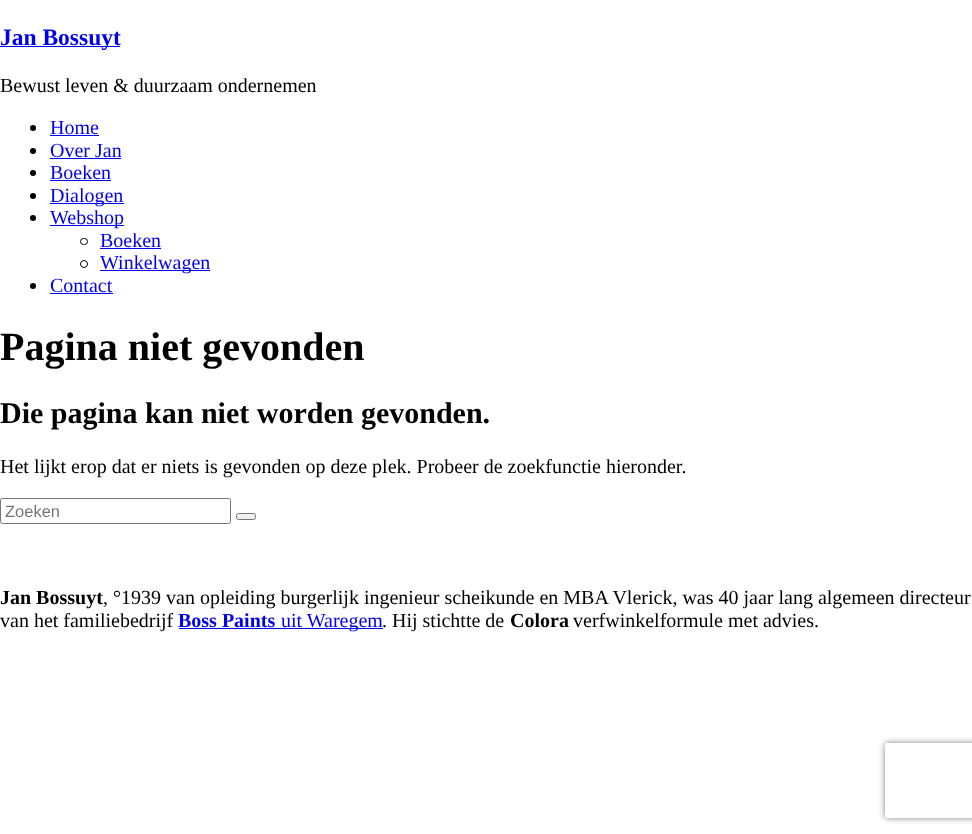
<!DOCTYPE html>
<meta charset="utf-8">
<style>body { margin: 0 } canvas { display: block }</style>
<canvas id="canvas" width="972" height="834"></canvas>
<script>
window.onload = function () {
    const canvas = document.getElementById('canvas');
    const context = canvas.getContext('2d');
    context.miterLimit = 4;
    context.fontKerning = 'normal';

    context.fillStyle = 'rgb(255, 255, 255)';
    context.fillRect(0, 0, 972, 834);
    context.fillStyle = 'rgb(0, 0, 238)';
    context.fillRect(0, 46, 120, 1);
    context.fillStyle = 'rgb(0, 0, 0)';
    context.beginPath();
    context.arc(33, 128, 3, 0, 2 * Math.PI);
    context.fill();
    context.fillStyle = 'rgb(0, 0, 238)';
    context.fillRect(50, 135, 49, 1);
    context.fillStyle = 'rgb(0, 0, 0)';
    context.beginPath();
    context.arc(33, 151, 3, 0, 2 * Math.PI);
    context.fill();
    context.fillStyle = 'rgb(0, 0, 238)';
    context.fillRect(50, 158, 71, 1);
    context.fillStyle = 'rgb(0, 0, 0)';
    context.beginPath();
    context.arc(33, 173, 3, 0, 2 * Math.PI);
    context.fill();
    context.fillStyle = 'rgb(0, 0, 238)';
    context.fillRect(50, 180, 61, 1);
    context.fillStyle = 'rgb(0, 0, 0)';
    context.beginPath();
    context.arc(33, 196, 3, 0, 2 * Math.PI);
    context.fill();
    context.fillStyle = 'rgb(0, 0, 238)';
    context.fillRect(50, 203, 74, 1);
    context.fillStyle = 'rgb(0, 0, 0)';
    context.beginPath();
    context.arc(33, 218, 3, 0, 2 * Math.PI);
    context.fill();
    context.fillStyle = 'rgb(0, 0, 238)';
    context.fillRect(50, 225, 74, 1);
    context.beginPath();
    context.roundRect(80.5, 238.5, 7, 6, 3);
    context.strokeStyle = 'rgb(0, 0, 0)';
    context.stroke();
    context.fillRect(100, 248, 61, 1);
    context.beginPath();
    context.arc(84, 264, 3.5, 0, 2 * Math.PI);
    context.stroke();
    context.fillRect(100, 270, 110, 1);
    context.fillStyle = 'rgb(0, 0, 0)';
    context.beginPath();
    context.arc(33, 286, 3, 0, 2 * Math.PI);
    context.fill();
    context.fillStyle = 'rgb(0, 0, 238)';
    context.fillRect(50, 293, 63, 1);
    context.beginPath();
    context.roundRect(0.5, 498.5, 230, 25, 2);
    context.strokeStyle = 'rgb(118, 118, 118)';
    context.stroke();
    context.fillStyle = 'rgb(239, 239, 239)';
    context.beginPath();
    context.roundRect(236.5, 513.5, 19, 6, 2);
    context.fill();
    context.stroke();
    context.fillStyle = 'rgb(0, 0, 238)';
    context.fillRect(179, 628, 204, 1);
    context.save();
    context.beginPath();
    context.moveTo(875, 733);
    context.lineTo(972, 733);
    context.lineTo(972, 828);
    context.lineTo(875, 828);
    context.closePath();
    context.moveTo(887.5, 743);
    context.lineTo(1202.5, 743);
    context.bezierCurveTo(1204, 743, 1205, 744, 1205, 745.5);
    context.lineTo(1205, 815.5);
    context.bezierCurveTo(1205, 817, 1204, 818, 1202.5, 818);
    context.lineTo(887.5, 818);
    context.bezierCurveTo(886, 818, 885, 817, 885, 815.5);
    context.lineTo(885, 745.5);
    context.bezierCurveTo(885, 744, 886, 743, 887.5, 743);
    context.closePath();
    context.clip('evenodd');
    context.fillStyle = 'rgb(128, 128, 128)';
    context.filter = 'blur(3px)';
    context.beginPath();
    context.roundRect(885, 743, 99, 75, 2.5);
    context.fill();
    context.filter = 'none';
    context.restore();
    context.font = 'bold 23.5px Liberation Serif';
    context.fillText('Jan Bossuyt', 0, 45);
    context.font = '20px Liberation Serif';
    context.fillStyle = 'rgb(0, 0, 0)';
    context.fillText('Bewust leven & duurzaam ondernemen', 0, 92);
    context.fillStyle = 'rgb(0, 0, 238)';
    context.fillText('Home', 50, 134);
    context.fillText('Over Jan', 50, 157);
    context.fillText('Boeken', 50, 179);
    context.fillText('Dialogen', 50, 202);
    context.fillText('Webshop', 50, 224);
    context.fillText('Boeken', 100, 247);
    context.fillText('Winkelwagen', 100, 269);
    context.fillText('Contact', 50, 292);
    context.font = 'bold 40px Liberation Serif';
    context.fillStyle = 'rgb(0, 0, 0)';
    context.fillText('Pagina niet gevonden', 0, 360);
    context.font = 'bold 30px Liberation Serif';
    context.fillText('Die pagina kan niet worden gevonden.', 0, 423);
    context.font = '20px Liberation Serif';
    context.fillText('Het lijkt erop dat er niets is gevonden op deze plek. Probeer de zoekfunctie hieronder.', 0, 473);
    context.font = '16.5px Liberation Sans';
    context.fillStyle = 'rgb(117, 117, 117)';
    context.fillText('Zoeken', 5, 517);
    context.font = 'bold 20px Liberation Serif';
    context.fillStyle = 'rgb(0, 0, 0)';
    context.fillText('Jan Bossuyt', 0, 604);
    context.font = '20px Liberation Serif';
    context.fillText(', °1939 van opleiding burgerlijk ingenieur scheikunde en MBA Vlerick, was 40 jaar lang algemeen directeur', 103, 604);
    context.fillText('van het familiebedrijf', 0, 627);
    context.font = 'bold 20px Liberation Serif';
    context.fillStyle = 'rgb(0, 0, 238)';
    context.fillText('Boss Paints', 178, 627);
    context.font = '20px Liberation Serif';
    context.fillText('uit Waregem', 281, 627);
    context.fillStyle = 'rgb(0, 0, 0)';
    context.fillText('. Hij stichtte de', 382, 627);
    context.font = 'bold 20px Liberation Serif';
    context.fillText('Colora', 510, 627);
    context.font = '20px Liberation Serif';
    context.fillText('verfwinkelformule met advies.', 573, 627);
};
</script>
